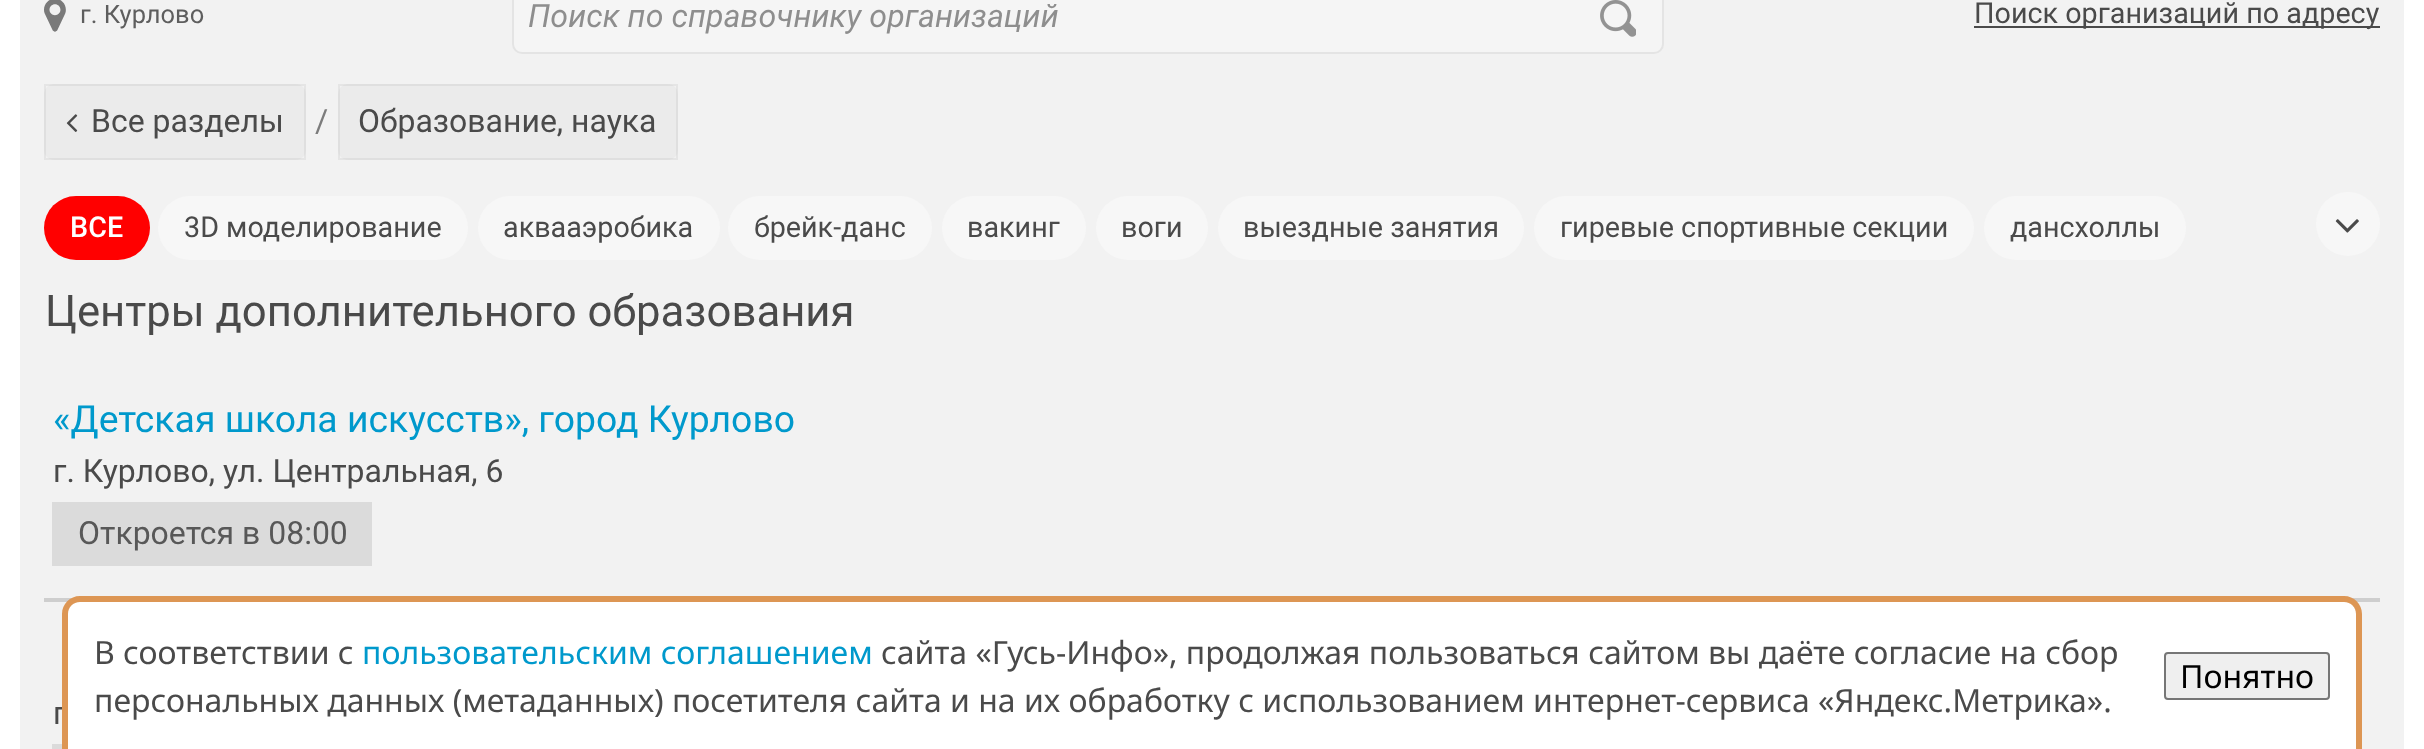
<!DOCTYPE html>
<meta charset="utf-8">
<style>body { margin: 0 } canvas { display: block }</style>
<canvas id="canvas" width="2424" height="749"></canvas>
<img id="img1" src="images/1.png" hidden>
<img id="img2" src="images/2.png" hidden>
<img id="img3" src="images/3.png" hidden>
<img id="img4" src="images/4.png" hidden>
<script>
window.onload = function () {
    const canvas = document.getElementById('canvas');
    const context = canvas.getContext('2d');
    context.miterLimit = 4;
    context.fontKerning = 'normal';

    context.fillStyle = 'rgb(255, 255, 255)';
    context.fillRect(0, 0, 2424, 749);
    context.fillStyle = 'rgb(242, 242, 242)';
    context.fillRect(20, 0, 2384, 749);
    context.drawImage(document.getElementById('img1'), 44, 0, 22, 32);
    context.fillStyle = 'rgb(245, 245, 245)';
    context.beginPath();
    context.roundRect(513, -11, 1150, 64, 9);
    context.fill();
    context.strokeStyle = 'rgb(228, 228, 228)';
    context.lineWidth = 2;
    context.stroke();
    context.drawImage(document.getElementById('img2'), 1600, 0, 36, 37);
    context.fillStyle = 'rgb(74, 74, 74)';
    context.fillRect(1974, 26, 406, 2);
    context.fillStyle = 'rgb(235, 235, 235)';
    context.beginPath();
    context.roundRect(44, 84, 262, 76, 10);
    context.fill();
    context.strokeStyle = 'rgba(0, 0, 0, 0.05)';
    context.strokeRect(45, 85, 260, 74);
    context.drawImage(document.getElementById('img3'), 66, 114, 12, 18);
    context.beginPath();
    context.roundRect(338, 84, 340, 76, 10);
    context.fill();
    context.strokeRect(339, 85, 338, 74);
    context.fillStyle = 'rgb(255, 0, 0)';
    context.beginPath();
    context.roundRect(44, 196, 106, 64, 32);
    context.fill();
    context.fillStyle = 'rgb(247, 247, 247)';
    context.beginPath();
    context.roundRect(158, 196, 310, 64, 32);
    context.fill();
    context.beginPath();
    context.roundRect(478, 196, 242, 64, 32);
    context.fill();
    context.beginPath();
    context.roundRect(728, 196, 204, 64, 32);
    context.fill();
    context.beginPath();
    context.roundRect(942, 196, 144, 64, 32);
    context.fill();
    context.beginPath();
    context.roundRect(1096, 196, 112, 64, 32);
    context.fill();
    context.beginPath();
    context.roundRect(1218, 196, 306, 64, 32);
    context.fill();
    context.beginPath();
    context.roundRect(1534, 196, 440, 64, 32);
    context.fill();
    context.beginPath();
    context.roundRect(1984, 196, 202, 64, 32);
    context.fill();
    context.beginPath();
    context.arc(2348, 224, 32, 0, 2 * Math.PI);
    context.fill();
    context.drawImage(document.getElementById('img4'), 2335, 219, 24, 14);
    context.fillStyle = 'rgb(219, 219, 219)';
    context.fillRect(52, 502, 320, 64);
    context.fillStyle = 'rgb(206, 206, 206)';
    context.fillRect(44, 598, 2336, 4);
    context.fillStyle = 'rgb(219, 219, 219)';
    context.fillRect(52, 744, 10, 5);
    context.fillStyle = 'rgb(255, 255, 255)';
    context.beginPath();
    context.moveTo(80, 602);
    context.lineTo(2344, 602);
    context.bezierCurveTo(2350.5, 602, 2356, 607.5, 2356, 614);
    context.lineTo(2356, 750);
    context.lineTo(68, 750);
    context.lineTo(68, 614);
    context.bezierCurveTo(68, 607.5, 73.5, 602, 80, 602);
    context.closePath();
    context.fill();
    context.font = '25.5px Roboto';
    context.fillStyle = 'rgb(94, 94, 94)';
    context.fillText('г. Курлово', 80, 23);
    context.font = 'italic 32px Roboto';
    context.fillStyle = 'rgb(142, 142, 142)';
    context.fillText('Поиск по справочнику организаций', 528, 27);
    context.font = '28.75px Roboto';
    context.fillStyle = 'rgb(74, 74, 74)';
    context.fillText('Поиск организаций по адресу', 1974, 23);
    context.font = '32px Roboto';
    context.fillText('Все разделы', 91, 132);
    context.fillStyle = 'rgb(124, 124, 124)';
    context.fillText('/', 315, 132);
    context.fillStyle = 'rgb(74, 74, 74)';
    context.fillText('Образование, наука', 358, 132);
    context.font = '500 28.75px Roboto';
    context.fillStyle = 'rgb(255, 255, 255)';
    context.fillText('ВСЕ', 70, 237);
    context.font = '28.75px Roboto';
    context.fillStyle = 'rgb(74, 74, 74)';
    context.fillText('3D моделирование', 184, 237);
    context.fillText('аквааэробика', 503, 237);
    context.fillText('брейк-данс', 754, 237);
    context.fillText('вакинг', 967, 237);
    context.fillText('воги', 1121, 237);
    context.fillText('выездные занятия', 1243, 237);
    context.fillText('гиревые спортивные секции', 1560, 237);
    context.fillText('дансхоллы', 2010, 237);
    context.font = '43.7px Roboto';
    context.fillText('Центры дополнительного образования', 45, 326);
    context.font = '37.4px Roboto';
    context.fillStyle = 'rgb(0, 153, 204)';
    context.fillText('«Детская школа искусств», город Курлово', 53, 432);
    context.font = '32px Roboto';
    context.fillStyle = 'rgb(74, 74, 74)';
    context.fillText('г. Курлово, ул. Центральная, 6', 53, 482);
    context.fillStyle = 'rgb(88, 88, 88)';
    context.fillText('Откроется в 08:00', 78, 544);
    context.fillStyle = 'rgb(74, 74, 74)';
    context.fillText('г', 53, 724);
    context.fillStyle = 'rgb(221, 150, 84)';
    context.beginPath();
    context.moveTo(80, 596);
    context.lineTo(2344, 596);
    context.bezierCurveTo(2354, 596, 2362, 604, 2362, 614);
    context.lineTo(2362, 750);
    context.lineTo(62, 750);
    context.lineTo(62, 614);
    context.bezierCurveTo(62, 604, 70, 596, 80, 596);
    context.closePath();
    context.moveTo(80, 602);
    context.lineTo(2344, 602);
    context.bezierCurveTo(2351, 602, 2356, 607, 2356, 614);
    context.lineTo(2356, 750);
    context.lineTo(68, 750);
    context.lineTo(68, 614);
    context.bezierCurveTo(68, 607, 73, 602, 80, 602);
    context.closePath();
    context.fill('evenodd');
    context.font = '32px Noto Sans';
    context.fillStyle = 'rgb(74, 74, 74)';
    context.fillText('В соответствии с', 94, 664);
    context.fillStyle = 'rgb(0, 153, 204)';
    context.fillText('пользовательским соглашением', 362, 664);
    context.fillStyle = 'rgb(74, 74, 74)';
    context.fillText('сайта «Гусь-Инфо», продолжая пользоваться сайтом вы даёте согласие на сбор', 881, 664);
    context.fillText('персональных данных (метаданных) посетителя сайта и на их обработку с использованием интернет-сервиса «Яндекс.Метрика».', 94, 712);
    context.fillStyle = 'rgb(239, 239, 239)';
    context.beginPath();
    context.roundRect(2165, 653, 164, 46, 3);
    context.fill();
    context.strokeStyle = 'rgb(118, 118, 118)';
    context.stroke();
    context.fillStyle = 'rgb(0, 0, 0)';
    context.fillText('Понятно', 2180, 688);
};
</script>
